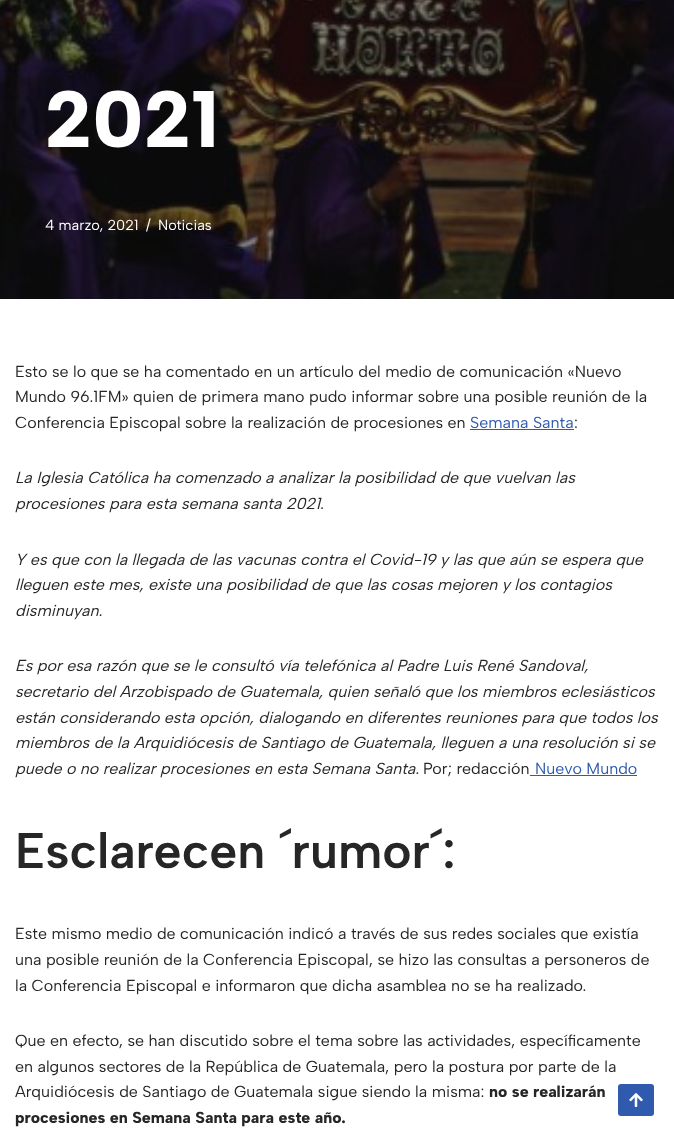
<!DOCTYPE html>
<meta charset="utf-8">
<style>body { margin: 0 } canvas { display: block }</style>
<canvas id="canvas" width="674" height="1146"></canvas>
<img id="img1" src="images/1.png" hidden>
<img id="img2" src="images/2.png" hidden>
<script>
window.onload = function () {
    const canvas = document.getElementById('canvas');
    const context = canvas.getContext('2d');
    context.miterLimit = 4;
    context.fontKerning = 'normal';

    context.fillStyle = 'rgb(255, 255, 255)';
    context.fillRect(0, 0, 674, 1146);
    context.drawImage(document.getElementById('img1'), 0, 0, 674, 299);
    context.fillStyle = 'rgb(47, 90, 174)';
    context.fillRect(470, 429, 104, 1);
    context.fillRect(530, 775, 107, 1);
    context.beginPath();
    context.roundRect(618, 1084, 36, 32, 3);
    context.fill();
    context.drawImage(document.getElementById('img2'), 629, 1093, 14, 14);
    context.font = '800 80px Albert Sans';
    context.fillStyle = 'rgb(255, 255, 255)';
    context.fillText('2021', 45, 147);
    context.font = '14.5px Albert Sans';
    context.fillText('4 marzo, 2021', 45, 230);
    context.fillText('/', 146, 230);
    context.fillText('Noticias', 158, 230);
    context.font = '16px Albert Sans';
    context.fillStyle = 'rgb(39, 38, 38)';
    context.fillText('Esto se lo que se ha comentado en un artículo del medio de comunicación «Nuevo', 15, 377);
    context.fillText('Mundo 96.1FM» quien de primera mano pudo informar sobre una posible reunión de la', 15, 402);
    context.fillText('Conferencia Episcopal sobre la realización de procesiones en', 15, 428);
    context.fillStyle = 'rgb(47, 90, 174)';
    context.fillText('Semana Santa', 470, 428);
    context.fillStyle = 'rgb(39, 38, 38)';
    context.fillText(':', 574, 428);
    context.font = 'italic 16px Albert Sans';
    context.fillText('La Iglesia Católica ha comenzado a analizar la posibilidad de que vuelvan las', 15, 483);
    context.fillText('procesiones para esta semana santa 2021.', 15, 509);
    context.fillText('Y es que con la llegada de las vacunas contra el Covid-19 y las que aún se espera que', 15, 565);
    context.fillText('lleguen este mes, existe una posibilidad de que las cosas mejoren y los contagios', 15, 590);
    context.fillText('disminuyan.', 15, 616);
    context.fillText('Es por esa razón que se le consultó vía telefónica al Padre Luis René Sandoval,', 15, 671);
    context.fillText('secretario del Arzobispado de Guatemala, quien señaló que los miembros eclesiásticos', 15, 697);
    context.fillText('están considerando esta opción, dialogando en diferentes reuniones para que todos los', 15, 723);
    context.fillText('miembros de la Arquidiócesis de Santiago de Guatemala, lleguen a una resolución si se', 15, 748);
    context.fillText('puede o no realizar procesiones en esta Semana Santa.', 15, 774);
    context.font = '16px Albert Sans';
    context.fillText('Por; redacción', 423, 774);
    context.fillStyle = 'rgb(47, 90, 174)';
    context.fillText('Nuevo Mundo', 535, 774);
    context.font = '600 50px Albert Sans';
    context.fillStyle = 'rgb(39, 38, 38)';
    context.fillText('Esclarecen ´rumor´:', 15, 868);
    context.font = '16px Albert Sans';
    context.fillText('Este mismo medio de comunicación indicó a través de sus redes sociales que existía', 15, 939);
    context.fillText('una posible reunión de la Conferencia Episcopal, se hizo las consultas a personeros de', 15, 965);
    context.fillText('la Conferencia Episcopal e informaron que dicha asamblea no se ha realizado.', 15, 991);
    context.fillText('Que en efecto, se han discutido sobre el tema sobre las actividades, específicamente', 15, 1046);
    context.fillText('en algunos sectores de la República de Guatemala, pero la postura por parte de la', 15, 1072);
    context.fillText('Arquidiócesis de Santiago de Guatemala sigue siendo la misma:', 15, 1097);
    context.font = '800 16px Albert Sans';
    context.fillText('no se realizarán', 489, 1097);
    context.fillText('procesiones en Semana Santa para este año.', 15, 1123);
};
</script>
